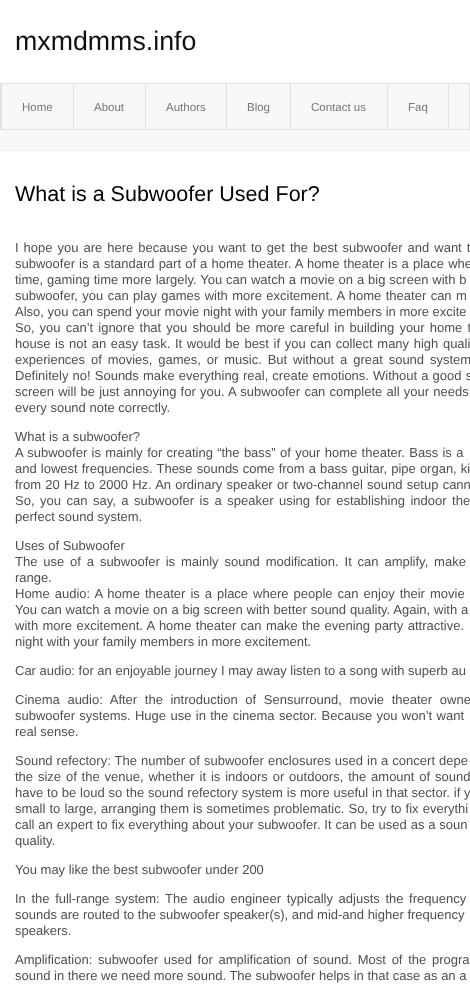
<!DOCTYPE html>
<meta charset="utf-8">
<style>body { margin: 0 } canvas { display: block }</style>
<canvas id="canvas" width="470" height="999"></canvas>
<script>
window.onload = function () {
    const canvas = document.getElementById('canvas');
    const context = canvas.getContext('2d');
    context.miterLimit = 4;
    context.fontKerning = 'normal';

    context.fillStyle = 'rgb(248, 248, 248)';
    context.fillRect(0, 0, 470, 999);
    context.fillStyle = 'rgb(255, 255, 255)';
    context.fillRect(0, 0, 470, 83);
    context.strokeStyle = 'rgb(225, 225, 225)';
    context.strokeRect(0.5, 83.5, 469, 46);
    context.fillStyle = 'rgb(225, 225, 225)';
    context.fillRect(1, 84, 1, 46);
    context.fillRect(73, 84, 1, 46);
    context.fillRect(145, 84, 1, 46);
    context.fillRect(226, 84, 1, 46);
    context.fillRect(290, 84, 1, 46);
    context.fillRect(387, 84, 1, 46);
    context.fillRect(448, 84, 1, 46);
    context.fillStyle = 'rgb(255, 255, 255)';
    context.fillRect(0, 151, 470, 848);
    context.fillStyle = 'rgb(241, 241, 241)';
    context.fillRect(0, 150, 470, 1);
    context.font = '26.75px Liberation Sans';
    context.fillStyle = 'rgb(17, 17, 17)';
    context.fillText('mxmdmms.info', 15, 50);
    context.font = '11.5px Liberation Sans';
    context.fillStyle = 'rgb(119, 119, 119)';
    context.fillText('Home', 22, 111);
    context.fillText('About', 94, 111);
    context.fillText('Authors', 166, 111);
    context.fillText('Blog', 247, 111);
    context.fillText('Contact us', 311, 111);
    context.fillText('Faq', 408, 111);
    context.font = '21.5px Liberation Sans';
    context.fillStyle = 'rgb(0, 0, 0)';
    context.fillText('What is a Subwoofer Used For?', 15, 201);
    context.wordSpacing = '1.4px';
    context.font = '13px Liberation Sans';
    context.fillStyle = 'rgb(79, 79, 79)';
    context.fillText('I hope you are here because you want to get the best subwoofer and want t', 15, 252);
    context.wordSpacing = '0.5px';
    context.fillText('subwoofer is a standard part of a home theater. A home theater is a place whe', 15, 268);
    context.wordSpacing = '0.3px';
    context.fillText('time, gaming time more largely. You can watch a movie on a big screen with b', 15, 284);
    context.wordSpacing = '0.8px';
    context.fillText('subwoofer, you can play games with more excitement. A home theater can m', 15, 300);
    context.wordSpacing = '0px';
    context.fillText('Also, you can spend your movie night with your family members in more excite', 15, 316);
    context.wordSpacing = '1.5px';
    context.fillText('So, you can’t ignore that you should be more careful in building your home t', 15, 332);
    context.wordSpacing = '1px';
    context.fillText('house is not an easy task. It would be best if you can collect many high quali', 15, 348);
    context.wordSpacing = '2.25px';
    context.fillText('experiences of movies, games, or music. But without a great sound system', 15, 364);
    context.wordSpacing = '0.5px';
    context.fillText('Definitely no! Sounds make everything real, create emotions. Without a good s', 15, 380);
    context.wordSpacing = '0.6px';
    context.fillText('screen will be just annoying for you. A subwoofer can complete all your needs', 15, 396);
    context.wordSpacing = '0px';
    context.fillText('every sound note correctly.', 15, 412);
    context.fillText('What is a subwoofer?', 15, 441);
    context.wordSpacing = '0.7px';
    context.fillText('A subwoofer is mainly for creating “the bass” of your home theater. Bass is a', 15, 457);
    context.wordSpacing = '0.5px';
    context.fillText('and lowest frequencies. These sounds come from a bass guitar, pipe organ, ki', 15, 473);
    context.wordSpacing = '0.6px';
    context.fillText('from 20 Hz to 2000 Hz. An ordinary speaker or two-channel sound setup cann', 15, 489);
    context.wordSpacing = '1.9px';
    context.fillText('So, you can say, a subwoofer is a speaker using for establishing indoor the', 15, 505);
    context.wordSpacing = '0px';
    context.fillText('perfect sound system.', 15, 521);
    context.fillText('Uses of Subwoofer', 15, 550);
    context.wordSpacing = '2.25px';
    context.fillText('The use of a subwoofer is mainly sound modification. It can amplify, make', 15, 566);
    context.wordSpacing = '0px';
    context.fillText('range.', 15, 582);
    context.wordSpacing = '1.4px';
    context.fillText('Home audio: A home theater is a place where people can enjoy their movie', 15, 598);
    context.wordSpacing = '0.25px';
    context.fillText('You can watch a movie on a big screen with better sound quality. Again, with a', 15, 614);
    context.wordSpacing = '0.75px';
    context.fillText('with more excitement. A home theater can make the evening party attractive.', 15, 630);
    context.wordSpacing = '0px';
    context.fillText('night with your family members in more excitement.', 15, 646);
    context.fillText('Car audio: for an enjoyable journey I may away listen to a song with superb au', 15, 675);
    context.wordSpacing = '4px';
    context.fillText('Cinema audio: After the introduction of Sensurround, movie theater owne', 15, 704);
    context.wordSpacing = '0.75px';
    context.fillText('subwoofer systems. Huge use in the cinema sector. Because you won’t want', 15, 720);
    context.wordSpacing = '0px';
    context.fillText('real sense.', 15, 736);
    context.wordSpacing = '0.4px';
    context.fillText('Sound refectory: The number of subwoofer enclosures used in a concert depe', 15, 765);
    context.wordSpacing = '1.25px';
    context.fillText('the size of the venue, whether it is indoors or outdoors, the amount of sound', 15, 781);
    context.wordSpacing = '0.25px';
    context.fillText('have to be loud so the sound refectory system is more useful in that sector. if y', 15, 797);
    context.wordSpacing = '0.5px';
    context.fillText('small to large, arranging them is sometimes problematic. So, try to fix everythi', 15, 813);
    context.wordSpacing = '0.25px';
    context.fillText('call an expert to fix everything about your subwoofer. It can be used as a soun', 15, 829);
    context.wordSpacing = '0px';
    context.fillText('quality.', 15, 845);
    context.fillText('You may like the best subwoofer under 200', 15, 874);
    context.wordSpacing = '2px';
    context.fillText('In the full-range system: The audio engineer typically adjusts the frequency', 15, 903);
    context.wordSpacing = '0px';
    context.fillText('sounds are routed to the subwoofer speaker(s), and mid-and higher frequency', 15, 919);
    context.fillText('speakers.', 15, 935);
    context.wordSpacing = '2.1px';
    context.fillText('Amplification: subwoofer used for amplification of sound. Most of the progra', 15, 964);
    context.wordSpacing = '0px';
    context.fillText('sound in there we need more sound. The subwoofer helps in that case as an a', 15, 980);
};
</script>
